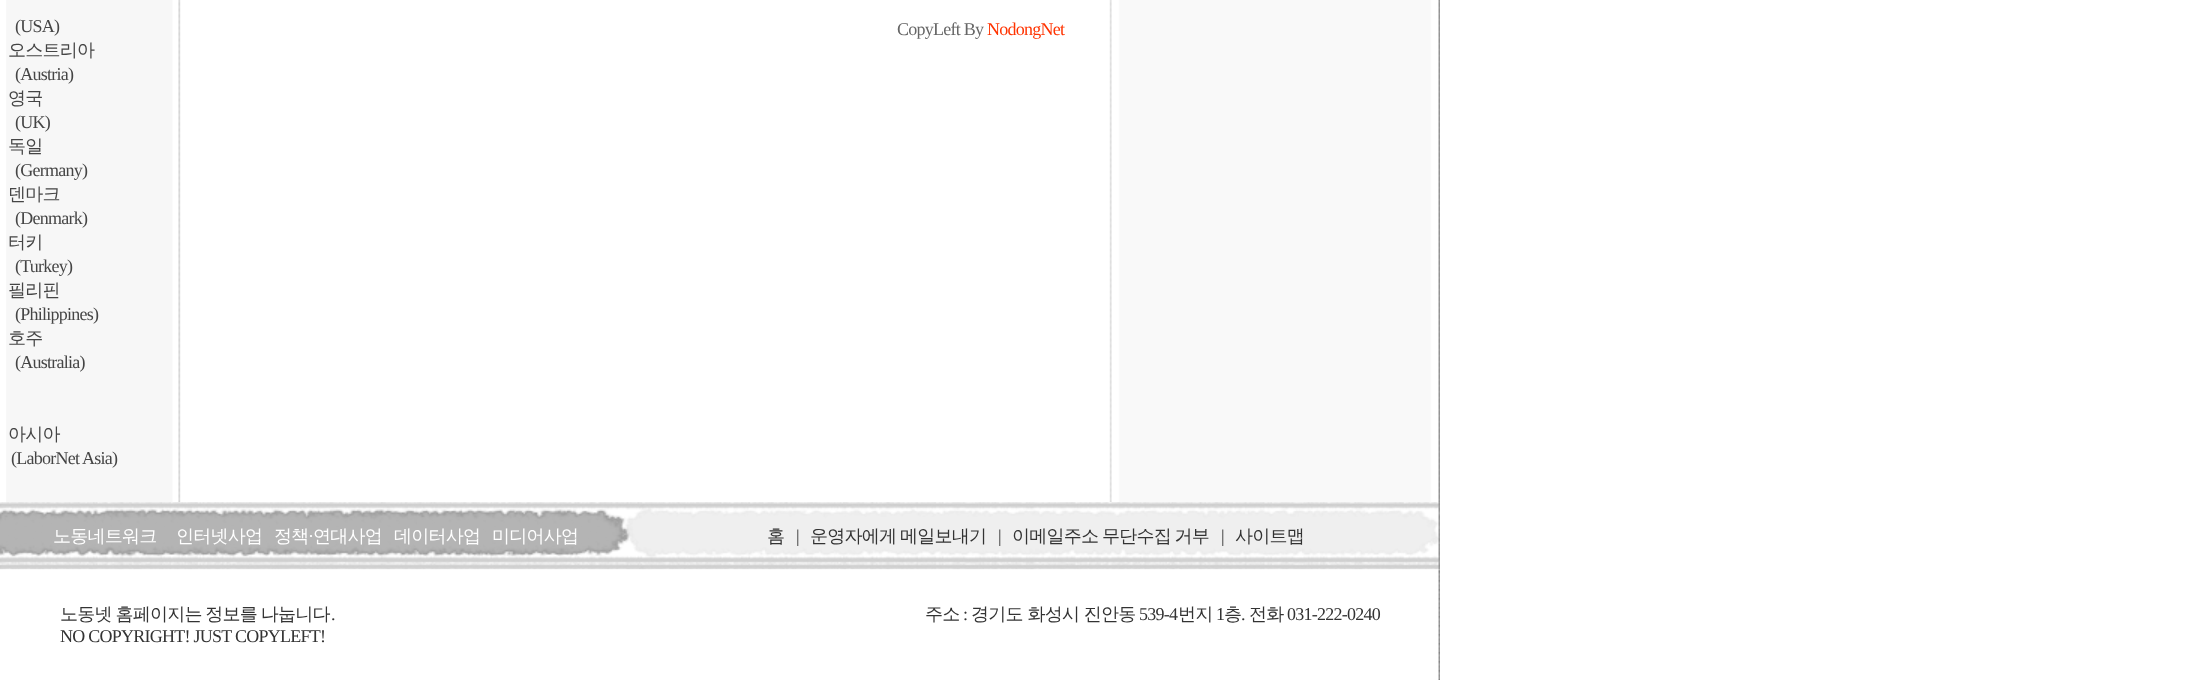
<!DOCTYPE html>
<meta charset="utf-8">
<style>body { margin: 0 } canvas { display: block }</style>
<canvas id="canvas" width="2195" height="680"></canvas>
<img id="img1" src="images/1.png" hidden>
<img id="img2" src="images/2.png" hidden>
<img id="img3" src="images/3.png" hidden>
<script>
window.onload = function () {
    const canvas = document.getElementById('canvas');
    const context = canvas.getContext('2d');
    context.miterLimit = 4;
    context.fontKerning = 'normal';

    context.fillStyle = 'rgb(255, 255, 255)';
    context.fillRect(0, 0, 2195, 680);
    context.drawImage(document.getElementById('img1'), 6, 0, 1434, 502);
    context.drawImage(document.getElementById('img2'), 0, 502, 1440, 68);
    context.drawImage(document.getElementById('img3'), 0, 569, 1440, 111);
    context.letterSpacing = '-0.75px';
    context.font = '18px Liberation Serif';
    context.fillStyle = 'rgb(69, 69, 69)';
    context.fillText('(USA)', 15, 32);
    context.font = '500 18px WenQuanYi Zen Hei';
    context.fillText('오스트리아', 8, 56);
    context.font = '18px Liberation Serif';
    context.fillText('(Austria)', 15, 80);
    context.font = '500 18px WenQuanYi Zen Hei';
    context.fillText('영국', 8, 104);
    context.font = '18px Liberation Serif';
    context.fillText('(UK)', 15, 128);
    context.font = '500 18px WenQuanYi Zen Hei';
    context.fillText('독일', 8, 152);
    context.font = '18px Liberation Serif';
    context.fillText('(Germany)', 15, 176);
    context.font = '500 18px WenQuanYi Zen Hei';
    context.fillText('덴마크', 8, 200);
    context.font = '18px Liberation Serif';
    context.fillText('(Denmark)', 15, 224);
    context.font = '500 18px WenQuanYi Zen Hei';
    context.fillText('터키', 8, 248);
    context.font = '18px Liberation Serif';
    context.fillText('(Turkey)', 15, 272);
    context.font = '500 18px WenQuanYi Zen Hei';
    context.fillText('필리핀', 8, 296);
    context.font = '18px Liberation Serif';
    context.fillText('(Philippines)', 15, 320);
    context.font = '500 18px WenQuanYi Zen Hei';
    context.fillText('호주', 8, 344);
    context.font = '18px Liberation Serif';
    context.fillText('(Australia)', 15, 368);
    context.font = '500 18px WenQuanYi Zen Hei';
    context.fillText('아시아', 8, 440);
    context.font = '18px Liberation Serif';
    context.fillText('(LaborNet Asia)', 11, 464);
    context.fillStyle = 'rgb(102, 102, 102)';
    context.fillText('CopyLeft By', 897, 35);
    context.fillStyle = 'rgb(255, 51, 0)';
    context.fillText('NodongNet', 987, 35);
    context.font = '500 18px WenQuanYi Zen Hei';
    context.fillStyle = 'rgb(255, 255, 255)';
    context.fillText('노동네트워크', 53, 542);
    context.fillText('인터넷사업', 176, 542);
    context.fillText('정책', 274, 542);
    context.font = '18px Liberation Serif';
    context.fillText('·', 308, 542);
    context.font = '500 18px WenQuanYi Zen Hei';
    context.fillText('연대사업', 313, 542);
    context.fillText('데이터사업', 394, 542);
    context.fillText('미디어사업', 492, 542);
    context.fillStyle = 'rgb(51, 51, 51)';
    context.fillText('홈', 767, 542);
    context.font = '18px Liberation Serif';
    context.fillText('|', 796, 542);
    context.wordSpacing = '-1px';
    context.font = '500 18px WenQuanYi Zen Hei';
    context.fillText('운영자에게 메일보내기', 810, 542);
    context.wordSpacing = '0px';
    context.font = '18px Liberation Serif';
    context.fillText('|', 998, 542);
    context.wordSpacing = '-1px';
    context.font = '500 18px WenQuanYi Zen Hei';
    context.fillText('이메일주소 무단수집 거부', 1012, 542);
    context.wordSpacing = '0px';
    context.font = '18px Liberation Serif';
    context.fillText('|', 1221, 542);
    context.font = '500 18px WenQuanYi Zen Hei';
    context.fillText('사이트맵', 1235, 542);
    context.wordSpacing = '-1px';
    context.fillText('노동넷 홈페이지는 정보를 나눕니다', 60, 620);
    context.wordSpacing = '0px';
    context.font = '18px Liberation Serif';
    context.fillText('.', 331, 620);
    context.fillText('NO COPYRIGHT! JUST COPYLEFT!', 60, 642);
    context.font = '500 18px WenQuanYi Zen Hei';
    context.fillText('주소', 925, 620);
    context.font = '18px Liberation Serif';
    context.fillText(':', 963, 620);
    context.font = '500 18px WenQuanYi Zen Hei';
    context.fillText('경기도 화성시 진안동', 971, 620);
    context.font = '18px Liberation Serif';
    context.fillText('539-4', 1139, 620);
    context.font = '500 18px WenQuanYi Zen Hei';
    context.fillText('번지', 1178, 620);
    context.font = '18px Liberation Serif';
    context.fillText('1', 1216, 620);
    context.font = '500 18px WenQuanYi Zen Hei';
    context.fillText('층', 1224, 620);
    context.font = '18px Liberation Serif';
    context.fillText('.', 1241, 620);
    context.font = '500 18px WenQuanYi Zen Hei';
    context.fillText('전화', 1249, 620);
    context.font = '18px Liberation Serif';
    context.fillText('031-222-0240', 1287, 620);
};
</script>
